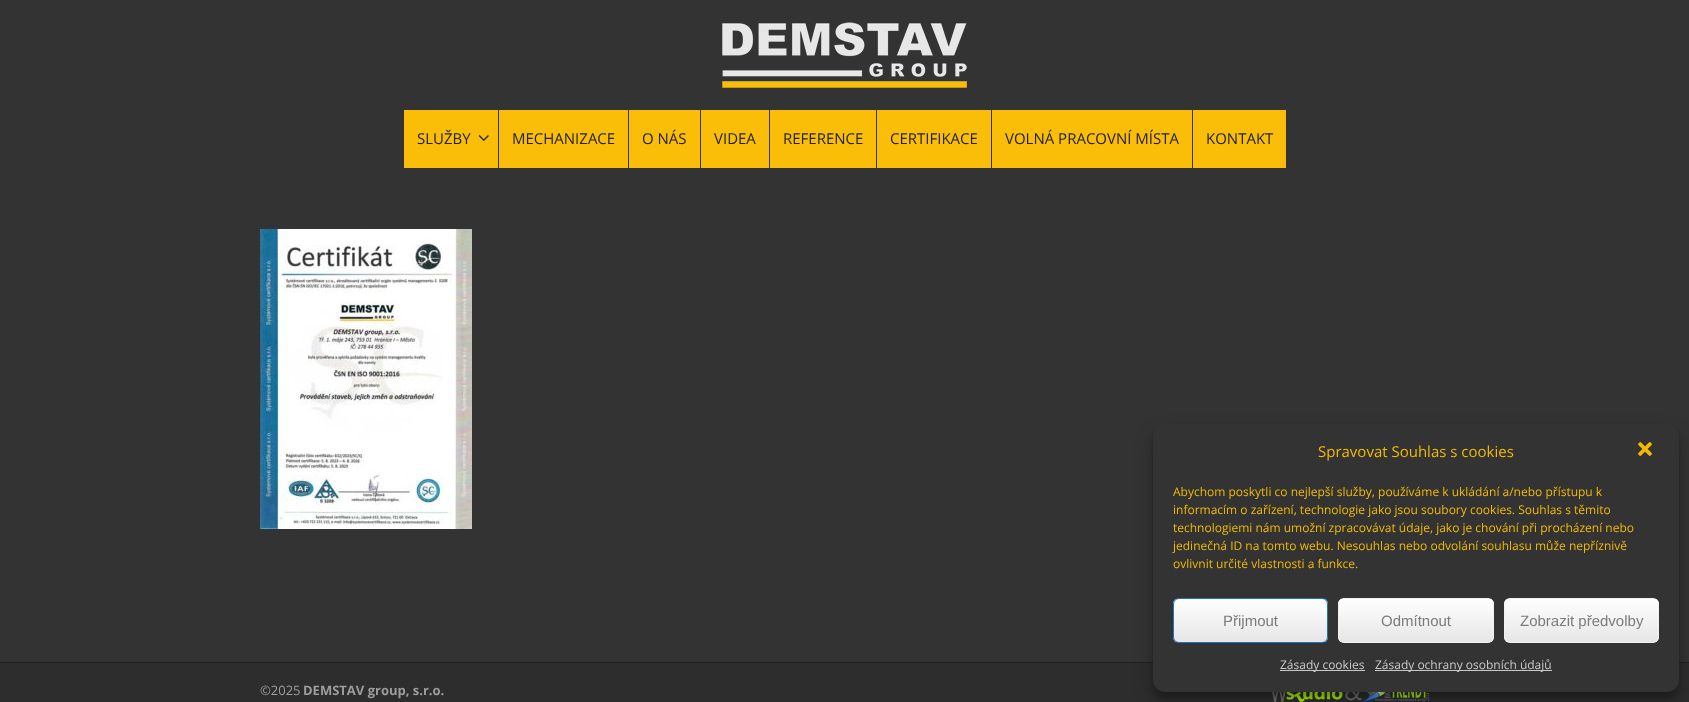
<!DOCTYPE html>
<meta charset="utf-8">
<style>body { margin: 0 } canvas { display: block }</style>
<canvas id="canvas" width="1689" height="702"></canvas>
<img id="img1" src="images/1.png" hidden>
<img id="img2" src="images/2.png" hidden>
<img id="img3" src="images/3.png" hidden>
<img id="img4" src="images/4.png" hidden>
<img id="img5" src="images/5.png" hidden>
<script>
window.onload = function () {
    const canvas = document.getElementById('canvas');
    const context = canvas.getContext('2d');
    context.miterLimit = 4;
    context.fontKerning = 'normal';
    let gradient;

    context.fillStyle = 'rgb(51, 51, 51)';
    context.fillRect(0, 0, 1689, 702);
    context.drawImage(document.getElementById('img1'), 722, 22, 245, 66);
    context.fillStyle = 'rgb(251, 190, 8)';
    context.fillRect(404, 110, 94, 58);
    context.drawImage(document.getElementById('img2'), 478, 135, 11, 6);
    context.fillRect(499, 110, 129, 58);
    context.fillRect(629, 110, 71, 58);
    context.fillRect(701, 110, 68, 58);
    context.fillRect(770, 110, 106, 58);
    context.fillRect(877, 110, 114, 58);
    context.fillRect(992, 110, 200, 58);
    context.fillRect(1193, 110, 93, 58);
    context.drawImage(document.getElementById('img3'), 260, 229, 212, 300);
    context.fillStyle = 'rgb(45, 45, 45)';
    context.fillRect(0, 663, 1689, 39);
    context.fillStyle = 'rgb(34, 34, 34)';
    context.fillRect(0, 662, 1689, 1);
    context.drawImage(document.getElementById('img4'), 1272, 692, 158, 10);
    context.fillStyle = 'rgba(0, 0, 0, 0.23)';
    context.filter = 'blur(3px)';
    context.beginPath();
    context.roundRect(1153, 430, 526, 268, 12);
    context.fill();
    context.filter = 'none';
    context.fillStyle = 'rgba(0, 0, 0, 0.19)';
    context.filter = 'blur(10px)';
    context.beginPath();
    context.roundRect(1153, 434, 526, 268, 12);
    context.fill();
    context.filter = 'none';
    context.fillStyle = 'rgb(51, 51, 51)';
    context.beginPath();
    context.roundRect(1153, 424, 526, 268, 12);
    context.fill();
    context.drawImage(document.getElementById('img5'), 1638, 442, 14, 14);
    context.save();
    context.beginPath();
    context.roundRect(1173, 598, 155, 45, 6);
    context.clip();
    gradient = context.createLinearGradient(1251, 599, 1251, 642);
    gradient.addColorStop(0, 'rgb(255, 255, 255)');
    gradient.addColorStop(1, 'rgb(230, 230, 230)');
    context.fillStyle = gradient;
    context.fillRect(1173, 599, 155, 43);
    context.restore();
    context.beginPath();
    context.roundRect(1173.5, 598.5, 154, 44, 5.5);
    context.strokeStyle = 'rgb(30, 115, 190)';
    context.stroke();
    context.save();
    context.beginPath();
    context.roundRect(1338, 598, 156, 45, 6);
    context.clip();
    gradient = context.createLinearGradient(1416, 599, 1416, 642);
    gradient.addColorStop(0, 'rgb(255, 255, 255)');
    gradient.addColorStop(1, 'rgb(230, 230, 230)');
    context.fillStyle = gradient;
    context.fillRect(1338, 599, 156, 43);
    context.restore();
    context.beginPath();
    context.roundRect(1338.5, 598.5, 155, 44, 5.5);
    context.strokeStyle = 'rgb(242, 242, 242)';
    context.stroke();
    context.save();
    context.beginPath();
    context.roundRect(1504, 598, 155, 45, 6);
    context.clip();
    gradient = context.createLinearGradient(1582, 599, 1582, 642);
    gradient.addColorStop(0, 'rgb(255, 255, 255)');
    gradient.addColorStop(1, 'rgb(230, 230, 230)');
    context.fillStyle = gradient;
    context.fillRect(1504, 599, 155, 43);
    context.restore();
    context.beginPath();
    context.roundRect(1504.5, 598.5, 154, 44, 5.5);
    context.stroke();
    context.fillStyle = 'rgb(201, 201, 201)';
    context.fillRect(1280, 670, 85, 1);
    context.fillRect(1375, 670, 177, 1);
    context.font = '15px Open Sans';
    context.fillStyle = 'rgb(34, 34, 34)';
    context.fillText('SLUŽBY', 417, 144);
    context.fillText('MECHANIZACE', 512, 144);
    context.fillText('O NÁS', 642, 144);
    context.fillText('VIDEA', 714, 144);
    context.fillText('REFERENCE', 783, 144);
    context.fillText('CERTIFIKACE', 890, 144);
    context.fillText('VOLNÁ PRACOVNÍ MÍSTA', 1005, 144);
    context.fillText('KONTAKT', 1206, 144);
    context.font = '13px Open Sans';
    context.fillStyle = 'rgb(156, 156, 156)';
    context.fillText('©2025', 260, 695);
    context.font = 'bold 13px Open Sans';
    context.fillText('DEMSTAV group, s.r.o.', 303, 695);
    context.font = '15px Open Sans';
    context.fillStyle = 'rgb(242, 186, 0)';
    context.fillText('Spravovat Souhlas s cookies', 1318, 457);
    context.font = '12px Open Sans';
    context.fillText('Abychom poskytli co nejlepší služby, používáme k ukládání a/nebo přístupu k', 1173, 496);
    context.fillText('informacím o zařízení, technologie jako jsou soubory cookies. Souhlas s těmito', 1173, 514);
    context.fillText('technologiemi nám umožní zpracovávat údaje, jako je chování při procházení nebo', 1173, 532);
    context.fillText('jedinečná ID na tomto webu. Nesouhlas nebo odvolání souhlasu může nepříznivě', 1173, 550);
    context.fillText('ovlivnit určité vlastnosti a funkce.', 1173, 568);
    context.font = '15px Liberation Sans';
    context.fillStyle = 'rgb(124, 124, 124)';
    context.fillText('Přijmout', 1223, 626);
    context.fillText('Odmítnout', 1381, 626);
    context.fillText('Zobrazit předvolby', 1520, 626);
    context.font = '12px Open Sans';
    context.fillStyle = 'rgb(201, 201, 201)';
    context.fillText('Zásady cookies', 1280, 669);
    context.fillText('Zásady ochrany osobních údajů', 1375, 669);
};
</script>
